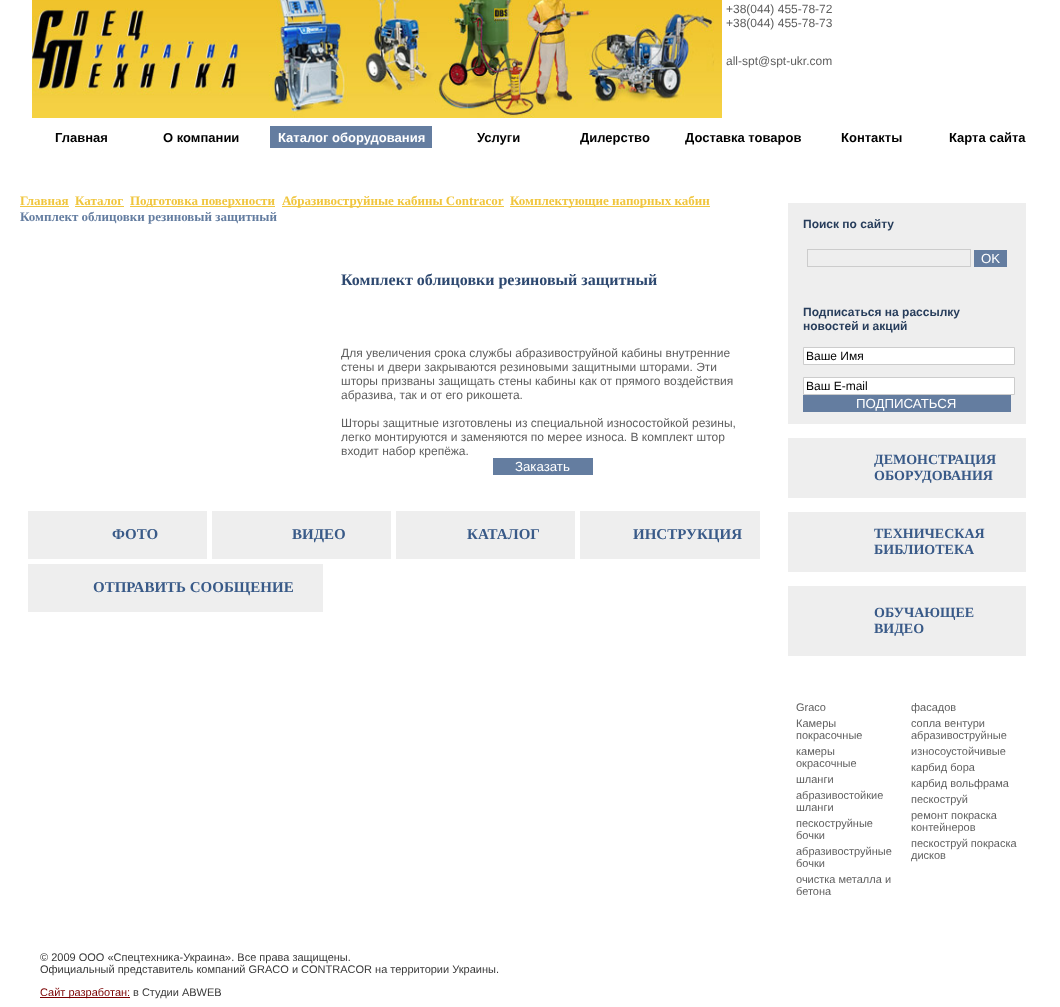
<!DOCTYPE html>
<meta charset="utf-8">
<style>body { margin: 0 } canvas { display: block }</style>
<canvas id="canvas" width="1060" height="1007"></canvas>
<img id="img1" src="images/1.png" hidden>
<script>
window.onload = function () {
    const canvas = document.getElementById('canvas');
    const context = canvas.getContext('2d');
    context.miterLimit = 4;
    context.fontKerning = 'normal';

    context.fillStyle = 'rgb(255, 255, 255)';
    context.fillRect(0, 0, 1060, 1007);
    context.drawImage(document.getElementById('img1'), 32, 0, 690, 118);
    context.fillStyle = 'rgb(100, 125, 160)';
    context.fillRect(270, 126, 162, 22);
    context.fillStyle = 'rgb(240, 198, 63)';
    context.fillRect(20, 206, 49, 1);
    context.fillRect(75, 206, 49, 1);
    context.fillRect(130, 206, 145, 1);
    context.fillRect(282, 206, 222, 1);
    context.fillRect(510, 206, 200, 1);
    context.fillStyle = 'rgb(100, 125, 160)';
    context.fillRect(493, 458, 100, 17);
    context.fillStyle = 'rgb(238, 238, 238)';
    context.fillRect(28, 511, 179, 48);
    context.fillRect(212, 511, 179, 48);
    context.fillRect(396, 511, 179, 48);
    context.fillRect(580, 511, 180, 48);
    context.fillRect(28, 564, 295, 48);
    context.fillRect(788, 203, 238, 221);
    context.strokeStyle = 'rgb(204, 204, 204)';
    context.strokeRect(807.5, 249.5, 163, 17);
    context.fillStyle = 'rgb(100, 125, 160)';
    context.fillRect(974, 250, 33, 17);
    context.fillStyle = 'rgb(255, 255, 255)';
    context.beginPath();
    context.rect(803.5, 347.5, 211, 17);
    context.fill();
    context.stroke();
    context.beginPath();
    context.rect(803.5, 377.5, 211, 17);
    context.fill();
    context.stroke();
    context.fillStyle = 'rgb(100, 125, 160)';
    context.fillRect(803, 395, 208, 17);
    context.fillStyle = 'rgb(238, 238, 238)';
    context.fillRect(788, 438, 238, 60);
    context.fillRect(788, 512, 238, 60);
    context.fillRect(788, 586, 238, 70);
    context.fillStyle = 'rgb(122, 0, 0)';
    context.fillRect(40, 997, 90, 1);
    context.font = '12px Liberation Sans';
    context.fillStyle = 'rgb(95, 95, 95)';
    context.fillText('+38(044) 455-78-72', 726, 13);
    context.fillText('+38(044) 455-78-73', 726, 27);
    context.fillText('all-spt@spt-ukr.com', 726, 65);
    context.font = 'bold 13px Liberation Sans';
    context.fillStyle = 'rgb(0, 0, 0)';
    context.fillText('Главная', 55, 142);
    context.fillText('О компании', 163, 142);
    context.fillStyle = 'rgb(255, 255, 255)';
    context.fillText('Каталог оборудования', 278, 142);
    context.fillStyle = 'rgb(0, 0, 0)';
    context.fillText('Услуги', 477, 142);
    context.fillText('Дилерство', 580, 142);
    context.fillText('Доставка товаров', 685, 142);
    context.fillText('Контакты', 841, 142);
    context.fillText('Карта сайта', 949, 142);
    context.font = 'bold 13px Liberation Serif';
    context.fillStyle = 'rgb(240, 198, 63)';
    context.fillText('Главная', 20, 205);
    context.fillText('Каталог', 75, 205);
    context.fillText('Подготовка поверхности', 130, 205);
    context.fillText('Абразивоструйные кабины Contracor', 282, 205);
    context.fillText('Комплектующие напорных кабин', 510, 205);
    context.fillStyle = 'rgb(100, 125, 160)';
    context.fillText('Комплект облицовки резиновый защитный', 20, 221);
    context.font = 'bold 16px Liberation Serif';
    context.fillStyle = 'rgb(46, 73, 112)';
    context.fillText('Комплект облицовки резиновый защитный', 341, 285);
    context.font = '12px Liberation Sans';
    context.fillStyle = 'rgb(95, 95, 95)';
    context.fillText('Для увеличения срока службы абразивоструйной кабины внутренние', 341, 357);
    context.fillText('стены и двери закрываются резиновыми защитными шторами. Эти', 341, 371);
    context.fillText('шторы призваны защищать стены кабины как от прямого воздействия', 341, 385);
    context.fillText('абразива, так и от его рикошета.', 341, 399);
    context.fillText('Шторы защитные изготовлены из специальной износостойкой резины,', 341, 427);
    context.fillText('легко монтируются и заменяются по мерее износа. В комплект штор', 341, 441);
    context.fillText('входит набор крепёжа.', 341, 455);
    context.font = '13.25px Liberation Sans';
    context.fillStyle = 'rgb(255, 255, 255)';
    context.fillText('Заказать', 515, 471);
    context.font = 'bold 15px Liberation Serif';
    context.fillStyle = 'rgb(57, 90, 136)';
    context.fillText('ФОТО', 112, 539);
    context.fillText('ВИДЕО', 292, 539);
    context.fillText('КАТАЛОГ', 467, 539);
    context.fillText('ИНСТРУКЦИЯ', 633, 539);
    context.fillText('ОТПРАВИТЬ СООБЩЕНИЕ', 93, 592);
    context.font = 'bold 12px Liberation Sans';
    context.fillStyle = 'rgb(39, 61, 91)';
    context.fillText('Поиск по сайту', 803, 228);
    context.font = '13.25px Liberation Sans';
    context.fillStyle = 'rgb(255, 255, 255)';
    context.fillText('OK', 981, 263);
    context.font = 'bold 12px Liberation Sans';
    context.fillStyle = 'rgb(39, 61, 91)';
    context.fillText('Подписаться на рассылку', 803, 316);
    context.fillText('новостей и акций', 803, 330);
    context.font = '12px Liberation Sans';
    context.fillStyle = 'rgb(0, 0, 0)';
    context.fillText('Ваше Имя', 806, 360);
    context.fillText('Ваш E-mail', 806, 390);
    context.font = '13.25px Liberation Sans';
    context.fillStyle = 'rgb(255, 255, 255)';
    context.fillText('ПОДПИСАТЬСЯ', 856, 408);
    context.font = 'bold 14px Liberation Serif';
    context.fillStyle = 'rgb(57, 90, 136)';
    context.fillText('ДЕМОНСТРАЦИЯ', 874, 464);
    context.fillText('ОБОРУДОВАНИЯ', 874, 480);
    context.fillText('ТЕХНИЧЕСКАЯ', 874, 538);
    context.fillText('БИБЛИОТЕКА', 874, 554);
    context.fillText('ОБУЧАЮЩЕЕ', 874, 617);
    context.fillText('ВИДЕО', 874, 633);
    context.font = '11px Liberation Sans';
    context.fillStyle = 'rgb(95, 95, 95)';
    context.fillText('Graco', 796, 711);
    context.fillText('Камеры', 796, 727);
    context.fillText('покрасочные', 796, 739);
    context.fillText('камеры', 796, 755);
    context.fillText('окрасочные', 796, 767);
    context.fillText('шланги', 796, 783);
    context.fillText('абразивостойкие', 796, 799);
    context.fillText('шланги', 796, 811);
    context.fillText('пескоструйные', 796, 827);
    context.fillText('бочки', 796, 839);
    context.fillText('абразивоструйные', 796, 855);
    context.fillText('бочки', 796, 867);
    context.fillText('очистка металла и', 796, 883);
    context.fillText('бетона', 796, 895);
    context.fillText('фасадов', 911, 711);
    context.fillText('сопла вентури', 911, 727);
    context.fillText('абразивоструйные', 911, 739);
    context.fillText('износоустойчивые', 911, 755);
    context.fillText('карбид бора', 911, 771);
    context.fillText('карбид вольфрама', 911, 787);
    context.fillText('пескоструй', 911, 803);
    context.fillText('ремонт покраска', 911, 819);
    context.fillText('контейнеров', 911, 831);
    context.fillText('пескоструй покраска', 911, 847);
    context.fillText('дисков', 911, 859);
    context.fillStyle = 'rgb(56, 56, 56)';
    context.fillText('© 2009 ООО «Спецтехника-Украина». Все права защищены.', 40, 961);
    context.fillText('Официальный представитель компаний GRACO и CONTRACOR на территории Украины.', 40, 973);
    context.fillStyle = 'rgb(122, 0, 0)';
    context.fillText('Сайт разработан:', 40, 996);
    context.fillStyle = 'rgb(56, 56, 56)';
    context.fillText('в Студии ABWEB', 133, 996);
};
</script>
